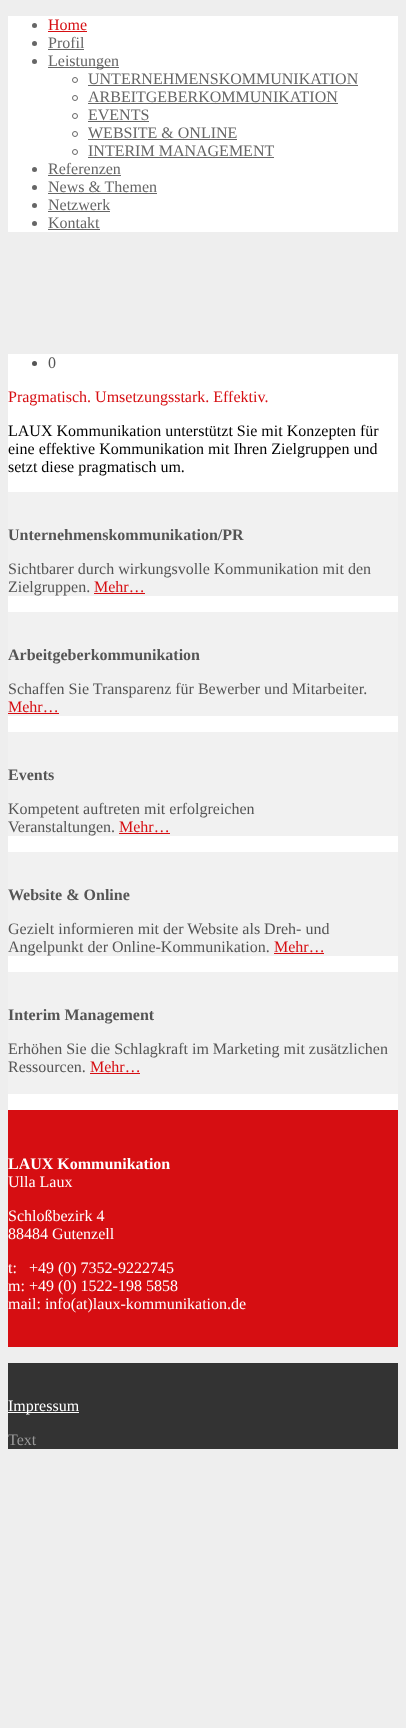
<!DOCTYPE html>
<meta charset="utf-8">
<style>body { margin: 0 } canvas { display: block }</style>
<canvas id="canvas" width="406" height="1728"></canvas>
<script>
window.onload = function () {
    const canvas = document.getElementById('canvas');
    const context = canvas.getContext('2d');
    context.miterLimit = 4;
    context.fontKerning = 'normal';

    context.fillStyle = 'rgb(238, 238, 238)';
    context.fillRect(0, 0, 406, 1728);
    context.fillStyle = 'rgb(255, 255, 255)';
    context.fillRect(8, 16, 390, 216);
    context.fillStyle = 'rgb(102, 102, 102)';
    context.beginPath();
    context.arc(34.5, 25.5, 2.5, 0, 2 * Math.PI);
    context.fill();
    context.fillStyle = 'rgb(214, 14, 18)';
    context.fillRect(48, 31, 39, 1);
    context.fillStyle = 'rgb(102, 102, 102)';
    context.beginPath();
    context.arc(34.5, 43.5, 2.5, 0, 2 * Math.PI);
    context.fill();
    context.fillRect(48, 49, 36, 1);
    context.beginPath();
    context.arc(34.5, 61.5, 2.5, 0, 2 * Math.PI);
    context.fill();
    context.fillRect(48, 67, 71, 1);
    context.beginPath();
    context.arc(75, 80, 2.5, 0, 2 * Math.PI);
    context.strokeStyle = 'rgb(102, 102, 102)';
    context.stroke();
    context.fillRect(88, 85, 270, 1);
    context.beginPath();
    context.arc(75, 98, 2.5, 0, 2 * Math.PI);
    context.stroke();
    context.fillRect(88, 103, 250, 1);
    context.beginPath();
    context.arc(75, 116, 2.5, 0, 2 * Math.PI);
    context.stroke();
    context.fillRect(88, 121, 61, 1);
    context.beginPath();
    context.arc(75, 134, 2.5, 0, 2 * Math.PI);
    context.stroke();
    context.fillRect(88, 139, 149, 1);
    context.beginPath();
    context.arc(75, 152, 2.5, 0, 2 * Math.PI);
    context.stroke();
    context.fillRect(88, 157, 186, 1);
    context.beginPath();
    context.arc(34.5, 169.5, 2.5, 0, 2 * Math.PI);
    context.fill();
    context.fillRect(48, 175, 73, 1);
    context.beginPath();
    context.arc(34.5, 187.5, 2.5, 0, 2 * Math.PI);
    context.fill();
    context.fillRect(48, 193, 109, 1);
    context.beginPath();
    context.arc(34.5, 205.5, 2.5, 0, 2 * Math.PI);
    context.fill();
    context.fillRect(48, 211, 62, 1);
    context.beginPath();
    context.arc(34.5, 223.5, 2.5, 0, 2 * Math.PI);
    context.fill();
    context.fillRect(48, 229, 52, 1);
    context.fillStyle = 'rgb(255, 255, 255)';
    context.fillRect(8, 354, 390, 756);
    context.fillStyle = 'rgb(85, 85, 85)';
    context.beginPath();
    context.arc(34.5, 363.5, 2.5, 0, 2 * Math.PI);
    context.fill();
    context.fillStyle = 'rgb(241, 241, 241)';
    context.fillRect(8, 492, 390, 104);
    context.fillStyle = 'rgb(214, 14, 18)';
    context.fillRect(94, 593, 51, 1);
    context.fillStyle = 'rgb(241, 241, 241)';
    context.fillRect(8, 612, 390, 104);
    context.fillStyle = 'rgb(214, 14, 18)';
    context.fillRect(8, 713, 51, 1);
    context.fillStyle = 'rgb(241, 241, 241)';
    context.fillRect(8, 732, 390, 104);
    context.fillStyle = 'rgb(214, 14, 18)';
    context.fillRect(119, 833, 51, 1);
    context.fillStyle = 'rgb(241, 241, 241)';
    context.fillRect(8, 852, 390, 104);
    context.fillStyle = 'rgb(214, 14, 18)';
    context.fillRect(274, 953, 50, 1);
    context.fillStyle = 'rgb(241, 241, 241)';
    context.fillRect(8, 972, 390, 122);
    context.fillStyle = 'rgb(214, 14, 18)';
    context.fillRect(90, 1073, 50, 1);
    context.fillRect(8, 1110, 390, 237);
    context.fillStyle = 'rgb(51, 51, 51)';
    context.fillRect(8, 1363, 390, 86);
    context.fillStyle = 'rgb(255, 255, 255)';
    context.fillRect(8, 1412, 71, 1);
    context.font = '16px Liberation Serif';
    context.fillStyle = 'rgb(214, 14, 18)';
    context.fillText('Home', 48, 30);
    context.fillStyle = 'rgb(102, 102, 102)';
    context.fillText('Profil', 48, 48);
    context.fillText('Leistungen', 48, 66);
    context.fillText('UNTERNEHMENSKOMMUNIKATION', 88, 84);
    context.fillText('ARBEITGEBERKOMMUNIKATION', 88, 102);
    context.fillText('EVENTS', 88, 120);
    context.fillText('WEBSITE & ONLINE', 88, 138);
    context.fillText('INTERIM MANAGEMENT', 88, 156);
    context.fillText('Referenzen', 48, 174);
    context.fillText('News & Themen', 48, 192);
    context.fillText('Netzwerk', 48, 210);
    context.fillText('Kontakt', 48, 228);
    context.fillStyle = 'rgb(85, 85, 85)';
    context.fillText('0', 48, 368);
    context.fillStyle = 'rgb(214, 14, 18)';
    context.fillText('Pragmatisch. Umsetzungsstark. Effektiv.', 8, 402);
    context.fillStyle = 'rgb(0, 0, 0)';
    context.fillText('LAUX Kommunikation unterstützt Sie mit Konzepten für', 8, 436);
    context.fillText('eine effektive Kommunikation mit Ihren Zielgruppen und', 8, 454);
    context.fillText('setzt diese pragmatisch um.', 8, 472);
    context.font = 'bold 16px Liberation Serif';
    context.fillStyle = 'rgb(85, 85, 85)';
    context.fillText('Unternehmenskommunikation/PR', 8, 540);
    context.font = '16px Liberation Serif';
    context.fillText('Sichtbarer durch wirkungsvolle Kommunikation mit den', 8, 574);
    context.fillText('Zielgruppen.', 8, 592);
    context.fillStyle = 'rgb(214, 14, 18)';
    context.fillText('Mehr…', 94, 592);
    context.font = 'bold 16px Liberation Serif';
    context.fillStyle = 'rgb(85, 85, 85)';
    context.fillText('Arbeitgeberkommunikation', 8, 660);
    context.font = '16px Liberation Serif';
    context.fillText('Schaffen Sie Transparenz für Bewerber und Mitarbeiter.', 8, 694);
    context.fillStyle = 'rgb(214, 14, 18)';
    context.fillText('Mehr…', 8, 712);
    context.font = 'bold 16px Liberation Serif';
    context.fillStyle = 'rgb(85, 85, 85)';
    context.fillText('Events', 8, 780);
    context.font = '16px Liberation Serif';
    context.fillText('Kompetent auftreten mit erfolgreichen', 8, 814);
    context.fillText('Veranstaltungen.', 8, 832);
    context.fillStyle = 'rgb(214, 14, 18)';
    context.fillText('Mehr…', 119, 832);
    context.font = 'bold 16px Liberation Serif';
    context.fillStyle = 'rgb(85, 85, 85)';
    context.fillText('Website & Online', 8, 900);
    context.font = '16px Liberation Serif';
    context.fillText('Gezielt informieren mit der Website als Dreh- und', 8, 934);
    context.fillText('Angelpunkt der Online-Kommunikation.', 8, 952);
    context.fillStyle = 'rgb(214, 14, 18)';
    context.fillText('Mehr…', 274, 952);
    context.font = 'bold 16px Liberation Serif';
    context.fillStyle = 'rgb(85, 85, 85)';
    context.fillText('Interim Management', 8, 1020);
    context.font = '16px Liberation Serif';
    context.fillText('Erhöhen Sie die Schlagkraft im Marketing mit zusätzlichen', 8, 1054);
    context.fillText('Ressourcen.', 8, 1072);
    context.fillStyle = 'rgb(214, 14, 18)';
    context.fillText('Mehr…', 90, 1072);
    context.font = 'bold 16px Liberation Serif';
    context.fillStyle = 'rgb(255, 255, 255)';
    context.fillText('LAUX Kommunikation', 8, 1169);
    context.font = '16px Liberation Serif';
    context.fillText('Ulla Laux', 8, 1187);
    context.fillText('Schloßbezirk 4', 8, 1221);
    context.fillText('88484 Gutenzell', 8, 1239);
    context.fillText('t:   +49 (0) 7352-9222745', 8, 1273);
    context.fillText('m: +49 (0) 1522-198 5858', 8, 1291);
    context.fillText('mail: info(at)laux-kommunikation.de', 8, 1309);
    context.fillText('Impressum', 8, 1411);
    context.fillStyle = 'rgb(153, 153, 153)';
    context.fillText('Text', 8, 1445);
};
</script>
